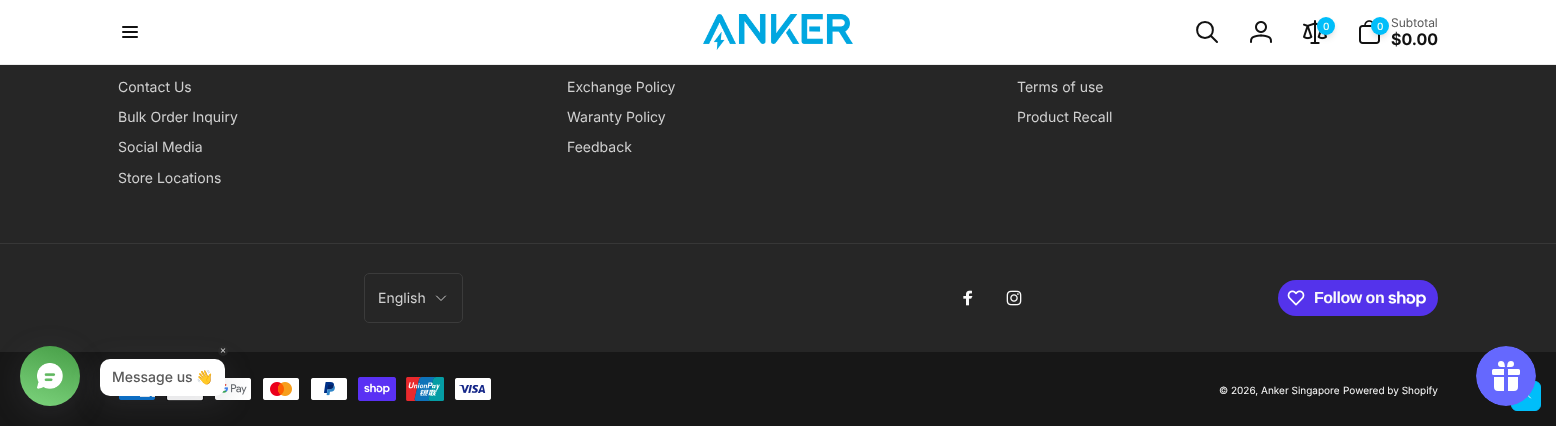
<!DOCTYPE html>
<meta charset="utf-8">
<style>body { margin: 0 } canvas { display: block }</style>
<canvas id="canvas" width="1556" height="426"></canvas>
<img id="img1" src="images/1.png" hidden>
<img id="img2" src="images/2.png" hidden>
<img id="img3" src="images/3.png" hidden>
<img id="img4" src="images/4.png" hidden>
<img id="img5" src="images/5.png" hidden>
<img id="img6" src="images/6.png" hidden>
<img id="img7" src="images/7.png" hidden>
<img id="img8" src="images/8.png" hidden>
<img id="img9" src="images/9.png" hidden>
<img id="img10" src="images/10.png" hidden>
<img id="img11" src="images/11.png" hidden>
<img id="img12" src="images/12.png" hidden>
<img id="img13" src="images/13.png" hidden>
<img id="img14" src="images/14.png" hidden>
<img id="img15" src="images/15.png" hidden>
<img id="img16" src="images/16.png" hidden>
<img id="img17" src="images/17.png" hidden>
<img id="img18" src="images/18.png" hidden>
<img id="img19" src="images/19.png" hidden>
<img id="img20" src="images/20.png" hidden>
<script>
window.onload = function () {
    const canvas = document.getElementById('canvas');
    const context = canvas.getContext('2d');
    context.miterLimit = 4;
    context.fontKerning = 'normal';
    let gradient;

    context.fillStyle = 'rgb(38, 38, 38)';
    context.fillRect(0, 0, 1556, 426);
    context.fillStyle = 'rgb(255, 255, 255)';
    context.fillRect(0, 0, 1556, 64);
    context.fillStyle = 'rgb(236, 236, 236)';
    context.fillRect(0, 64, 1556, 1);
    context.drawImage(document.getElementById('img1'), 122, 26, 16, 12);
    context.drawImage(document.getElementById('img2'), 703, 14, 150, 36);
    context.beginPath();
    context.moveTo(1217, 42);
    context.lineTo(1210.5, 35.5);
    context.moveTo(1205, 38);
    context.bezierCurveTo(1215.5, 38, 1215.5, 22, 1205, 22);
    context.bezierCurveTo(1194.5, 22, 1194.5, 38, 1205, 38);
    context.closePath();
    context.strokeStyle = 'rgb(18, 18, 18)';
    context.lineWidth = 2;
    context.lineCap = 'round';
    context.lineJoin = 'round';
    context.stroke();
    context.drawImage(document.getElementById('img3'), 1250, 21, 22, 22);
    context.drawImage(document.getElementById('img4'), 1303, 20, 24, 24);
    context.fillStyle = 'rgba(18, 18, 18, 0.06)';
    context.filter = 'blur(2px)';
    context.beginPath();
    context.roundRect(1318, 20, 16, 16, 8);
    context.fill();
    context.filter = 'none';
    context.fillStyle = 'rgba(18, 18, 18, 0.1)';
    context.filter = 'blur(3px)';
    context.beginPath();
    context.roundRect(1318, 22, 16, 16, 8);
    context.fill();
    context.filter = 'none';
    context.fillStyle = 'rgb(0, 190, 250)';
    context.beginPath();
    context.arc(1326, 26, 9, 0, 2 * Math.PI);
    context.fill();
    context.drawImage(document.getElementById('img5'), 1359, 20, 21, 24);
    context.fillStyle = 'rgba(18, 18, 18, 0.06)';
    context.filter = 'blur(2px)';
    context.beginPath();
    context.roundRect(1372, 20, 16, 16, 8);
    context.fill();
    context.filter = 'none';
    context.fillStyle = 'rgba(18, 18, 18, 0.1)';
    context.filter = 'blur(3px)';
    context.beginPath();
    context.roundRect(1372, 22, 16, 16, 8);
    context.fill();
    context.filter = 'none';
    context.fillStyle = 'rgb(0, 190, 250)';
    context.beginPath();
    context.arc(1380, 26, 9, 0, 2 * Math.PI);
    context.fill();
    context.fillStyle = 'rgb(55, 55, 55)';
    context.fillRect(0, 243, 1556, 1);
    context.beginPath();
    context.roundRect(364.5, 273.5, 98, 49, 4.5);
    context.strokeStyle = 'rgb(59, 59, 59)';
    context.lineWidth = 1;
    context.lineJoin = 'miter';
    context.stroke();
    context.beginPath();
    context.moveTo(445.5, 296);
    context.lineTo(441, 300.5);
    context.lineTo(436.5, 296);
    context.strokeStyle = 'rgb(208, 208, 208)';
    context.lineJoin = 'round';
    context.stroke();
    context.drawImage(document.getElementById('img6'), 963, 290, 10, 16);
    context.drawImage(document.getElementById('img7'), 1006, 290, 16, 16);
    context.fillStyle = 'rgb(84, 51, 235)';
    context.beginPath();
    context.roundRect(1278, 280, 160, 36, 18);
    context.fill();
    context.drawImage(document.getElementById('img8'), 1287, 290, 18, 16);
    context.drawImage(document.getElementById('img9'), 1388, 291, 38, 16);
    context.fillStyle = 'rgb(23, 23, 23)';
    context.fillRect(0, 352, 1556, 74);
    context.drawImage(document.getElementById('img10'), 119, 396, 36, 4);
    context.drawImage(document.getElementById('img11'), 166, 396, 38, 5);
    context.drawImage(document.getElementById('img12'), 215, 378, 36, 22);
    context.drawImage(document.getElementById('img13'), 263, 378, 36, 22);
    context.drawImage(document.getElementById('img14'), 311, 378, 36, 22);
    context.drawImage(document.getElementById('img15'), 358, 377, 38, 24);
    context.drawImage(document.getElementById('img16'), 406, 377, 38, 24);
    context.drawImage(document.getElementById('img17'), 455, 378, 36, 22);
    context.fillStyle = 'rgb(0, 190, 250)';
    context.beginPath();
    context.roundRect(1511.5, 381.5, 29, 29, 5.5);
    context.fill();
    context.strokeStyle = 'rgb(0, 190, 250)';
    context.lineJoin = 'miter';
    context.stroke();
    context.beginPath();
    context.moveTo(1521.5, 398);
    context.lineTo(1526, 393.5);
    context.lineTo(1530.5, 398);
    context.strokeStyle = 'rgb(240, 253, 244)';
    context.lineJoin = 'round';
    context.stroke();
    context.drawImage(document.getElementById('img18'), 1476, 346, 60, 60);
    context.fillStyle = 'rgba(100, 100, 111, 0.2)';
    context.filter = 'blur(14.5px)';
    context.beginPath();
    context.roundRect(20, 353, 60, 60, 30);
    context.fill();
    context.filter = 'none';
    gradient = context.createLinearGradient(62, 340, 38, 412);
    gradient.addColorStop(0, 'rgb(70, 157, 70)');
    gradient.addColorStop(1, 'rgb(125, 212, 125)');
    context.fillStyle = gradient;
    context.beginPath();
    context.arc(50, 376, 30, 0, 2 * Math.PI);
    context.fill();
    context.drawImage(document.getElementById('img19'), 37, 363, 26, 26);
    context.fillStyle = 'rgba(100, 100, 111, 0.2)';
    context.filter = 'blur(14.5px)';
    context.beginPath();
    context.roundRect(100, 366, 125, 37, 10);
    context.fill();
    context.filter = 'none';
    context.fillStyle = 'rgb(255, 255, 255)';
    context.beginPath();
    context.roundRect(100, 359, 125, 37, 10);
    context.fill();
    context.fillStyle = 'rgba(48, 48, 48, 0.55)';
    context.beginPath();
    context.arc(223, 351, 5, 0, 2 * Math.PI);
    context.fill();
    context.drawImage(document.getElementById('img20'), 220, 348, 6, 5);
    context.letterSpacing = '1px';
    context.font = '500 10px Inter';
    context.fillStyle = 'rgb(240, 253, 244)';
    context.fillText('0', 1323, 30);
    context.letterSpacing = '0px';
    context.fillText('0', 1377, 30);
    context.font = '12px Inter';
    context.fillStyle = 'rgb(89, 89, 89)';
    context.fillText('Subtotal', 1391, 27);
    context.font = 'bold 16px Inter';
    context.fillStyle = 'rgb(18, 18, 18)';
    context.fillText('$0.00', 1391, 45);
    context.font = '14px Inter';
    context.fillStyle = 'rgb(208, 208, 208)';
    context.fillText('Contact Us', 118, 92);
    context.fillText('Bulk Order Inquiry', 118, 122);
    context.fillText('Social Media', 118, 152);
    context.fillText('Store Locations', 118, 183);
    context.fillText('Exchange Policy', 567, 92);
    context.fillText('Waranty Policy', 567, 122);
    context.fillText('Feedback', 567, 152);
    context.fillText('Terms of use', 1017, 92);
    context.fillText('Product Recall', 1017, 122);
    context.fillText('English', 378, 303);
    context.letterSpacing = '-0.5px';
    context.font = 'bold 16px Liberation Sans';
    context.fillStyle = 'rgb(250, 250, 250)';
    context.fillText('Follow on', 1314, 303);
    context.letterSpacing = '0px';
    context.font = '10px Inter';
    context.fillText('© 2026, Anker Singapore', 1219, 394);
    context.fillText('Powered by Shopify', 1343, 394);
    context.font = '500 14px Inter';
    context.fillStyle = 'rgb(89, 89, 89)';
    context.fillText('Message us', 112, 382);
    context.font = '14px Noto Color Emoji';
    context.fillText('👋', 196, 382);
};
</script>
